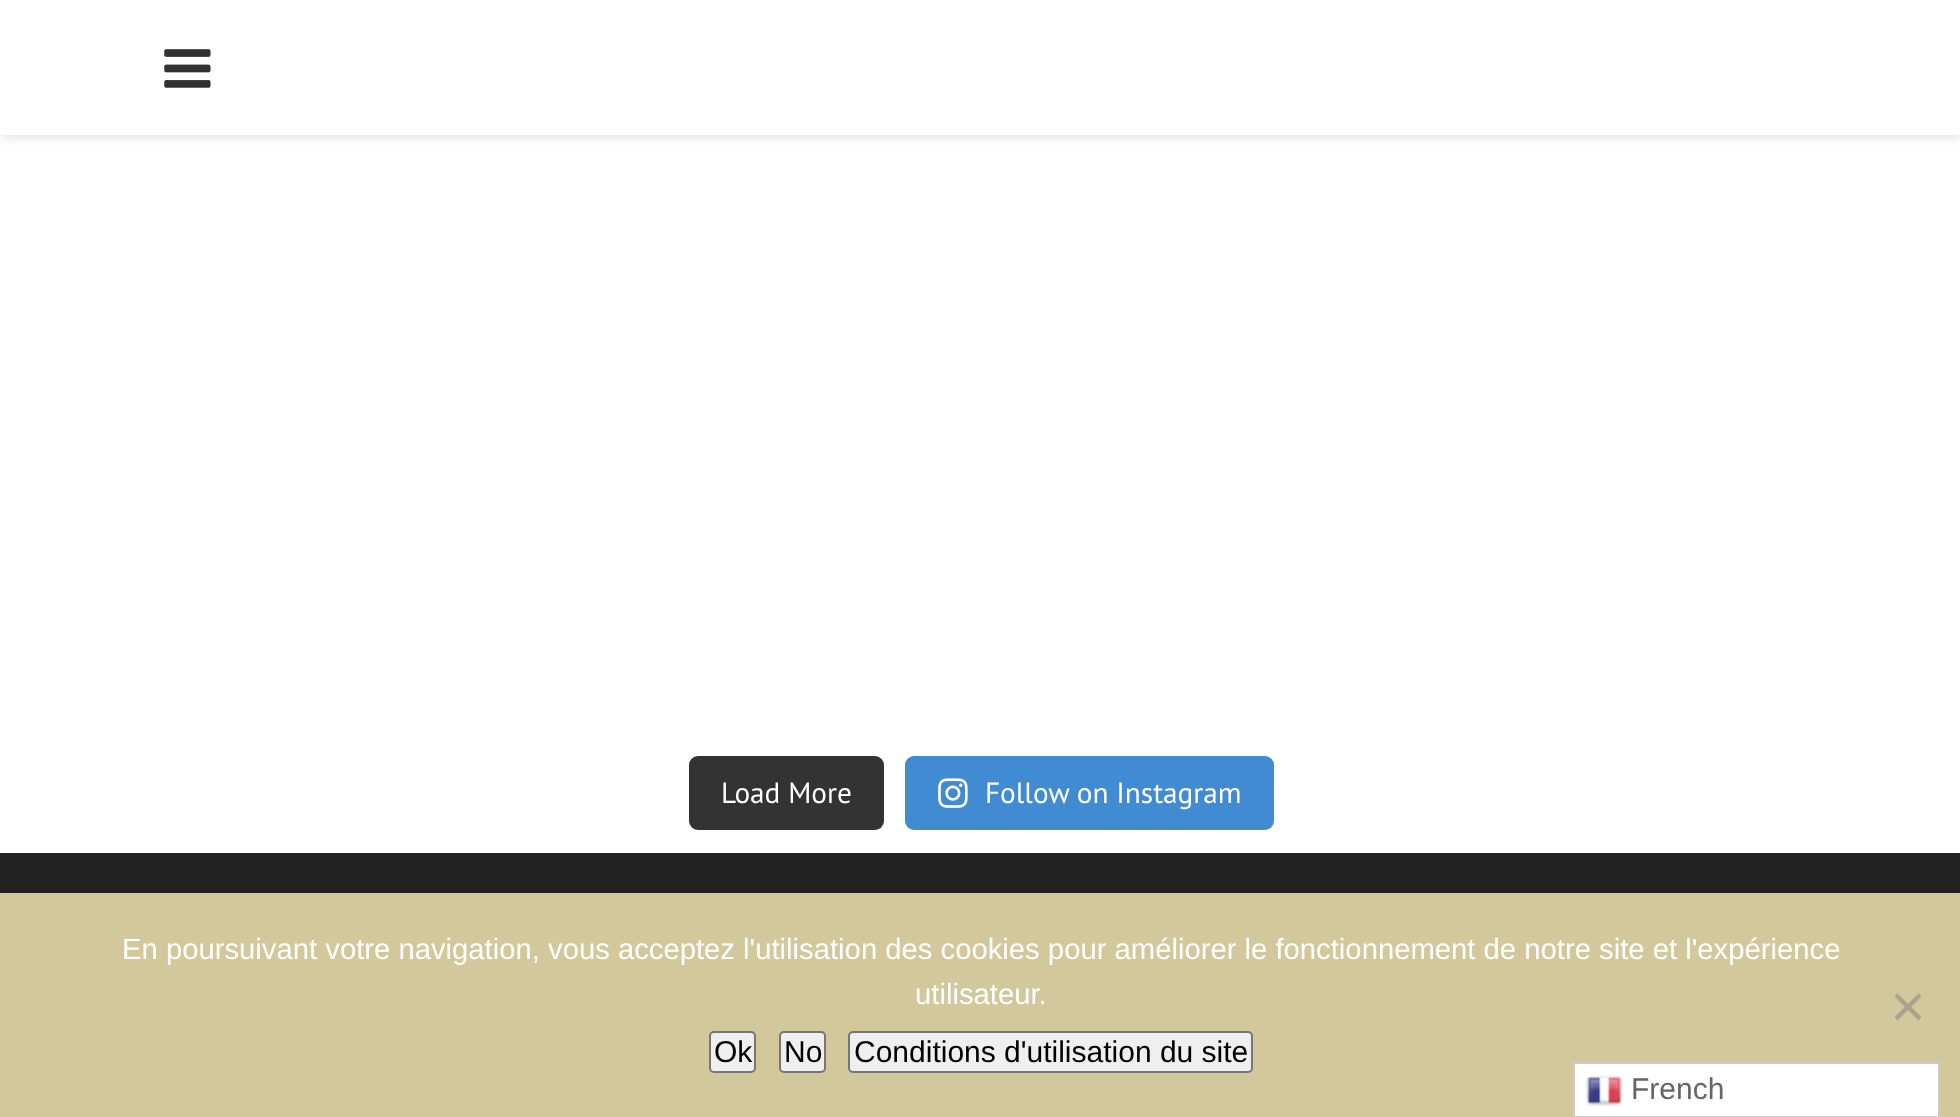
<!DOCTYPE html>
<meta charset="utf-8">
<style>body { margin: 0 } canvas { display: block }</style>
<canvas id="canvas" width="1960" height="1117"></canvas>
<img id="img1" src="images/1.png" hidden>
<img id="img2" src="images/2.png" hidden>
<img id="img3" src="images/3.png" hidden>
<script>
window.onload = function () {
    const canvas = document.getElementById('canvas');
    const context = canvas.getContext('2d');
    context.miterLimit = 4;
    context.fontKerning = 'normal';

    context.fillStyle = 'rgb(255, 255, 255)';
    context.fillRect(0, 0, 1960, 1117);
    context.fillStyle = 'rgba(190, 190, 190, 0.46)';
    context.filter = 'blur(5.5px)';
    context.beginPath();
    context.rect(0, 2, 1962, 135);
    context.fill();
    context.filter = 'none';
    context.fillStyle = 'rgb(255, 255, 255)';
    context.fillRect(0, 0, 1960, 135);
    context.drawImage(document.getElementById('img1'), 164, 49, 47, 39);
    context.fillStyle = 'rgb(51, 51, 51)';
    context.beginPath();
    context.roundRect(689, 756, 195, 74, 9);
    context.fill();
    context.fillStyle = 'rgb(64, 139, 209)';
    context.beginPath();
    context.roundRect(905, 756, 369, 74, 9);
    context.fill();
    context.drawImage(document.getElementById('img2'), 938, 778, 30, 30);
    context.fillStyle = 'rgb(33, 33, 33)';
    context.fillRect(0, 853, 1960, 40);
    context.fillStyle = 'rgb(211, 199, 156)';
    context.fillRect(0, 893, 1960, 224);
    context.fillStyle = 'rgb(170, 164, 142)';
    context.beginPath();
    context.moveTo(1918.5, 993.5);
    context.lineTo(1921.5, 996.5);
    context.lineTo(1897.5, 1020.5);
    context.lineTo(1894.5, 1017);
    context.closePath();
    context.fill();
    context.beginPath();
    context.moveTo(1894.5, 996.5);
    context.lineTo(1897.5, 993.5);
    context.lineTo(1921.5, 1017);
    context.lineTo(1918.5, 1020.5);
    context.closePath();
    context.fill();
    context.fillStyle = 'rgb(239, 239, 239)';
    context.beginPath();
    context.roundRect(710, 1032, 45, 40, 4);
    context.fill();
    context.strokeStyle = 'rgb(118, 118, 118)';
    context.lineWidth = 2;
    context.stroke();
    context.beginPath();
    context.roundRect(780, 1032, 45, 40, 4);
    context.fill();
    context.stroke();
    context.beginPath();
    context.roundRect(849, 1032, 403, 40, 4);
    context.fill();
    context.stroke();
    context.fillStyle = 'rgb(255, 255, 255)';
    context.beginPath();
    context.rect(1574, 1063, 365, 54);
    context.fill();
    context.strokeStyle = 'rgb(204, 204, 204)';
    context.stroke();
    context.drawImage(document.getElementById('img3'), 1586, 1075, 37, 32);
    context.font = '29.25px PT Sans';
    context.fillText('Load More', 721, 803);
    context.fillText('Follow on Instagram', 985, 803);
    context.font = '29.25px Liberation Sans';
    context.fillText('En poursuivant votre navigation, vous acceptez l\'utilisation des cookies pour améliorer le fonctionnement de notre site et l\'expérience', 122, 959);
    context.fillText('utilisateur.', 915, 1004);
    context.font = '30px Liberation Sans';
    context.fillStyle = 'rgb(0, 0, 0)';
    context.fillText('Ok', 714, 1062);
    context.fillText('No', 784, 1062);
    context.fillText('Conditions d\'utilisation du site', 854, 1062);
    context.fillStyle = 'rgb(102, 102, 102)';
    context.fillText('French', 1631, 1099);
};
</script>
